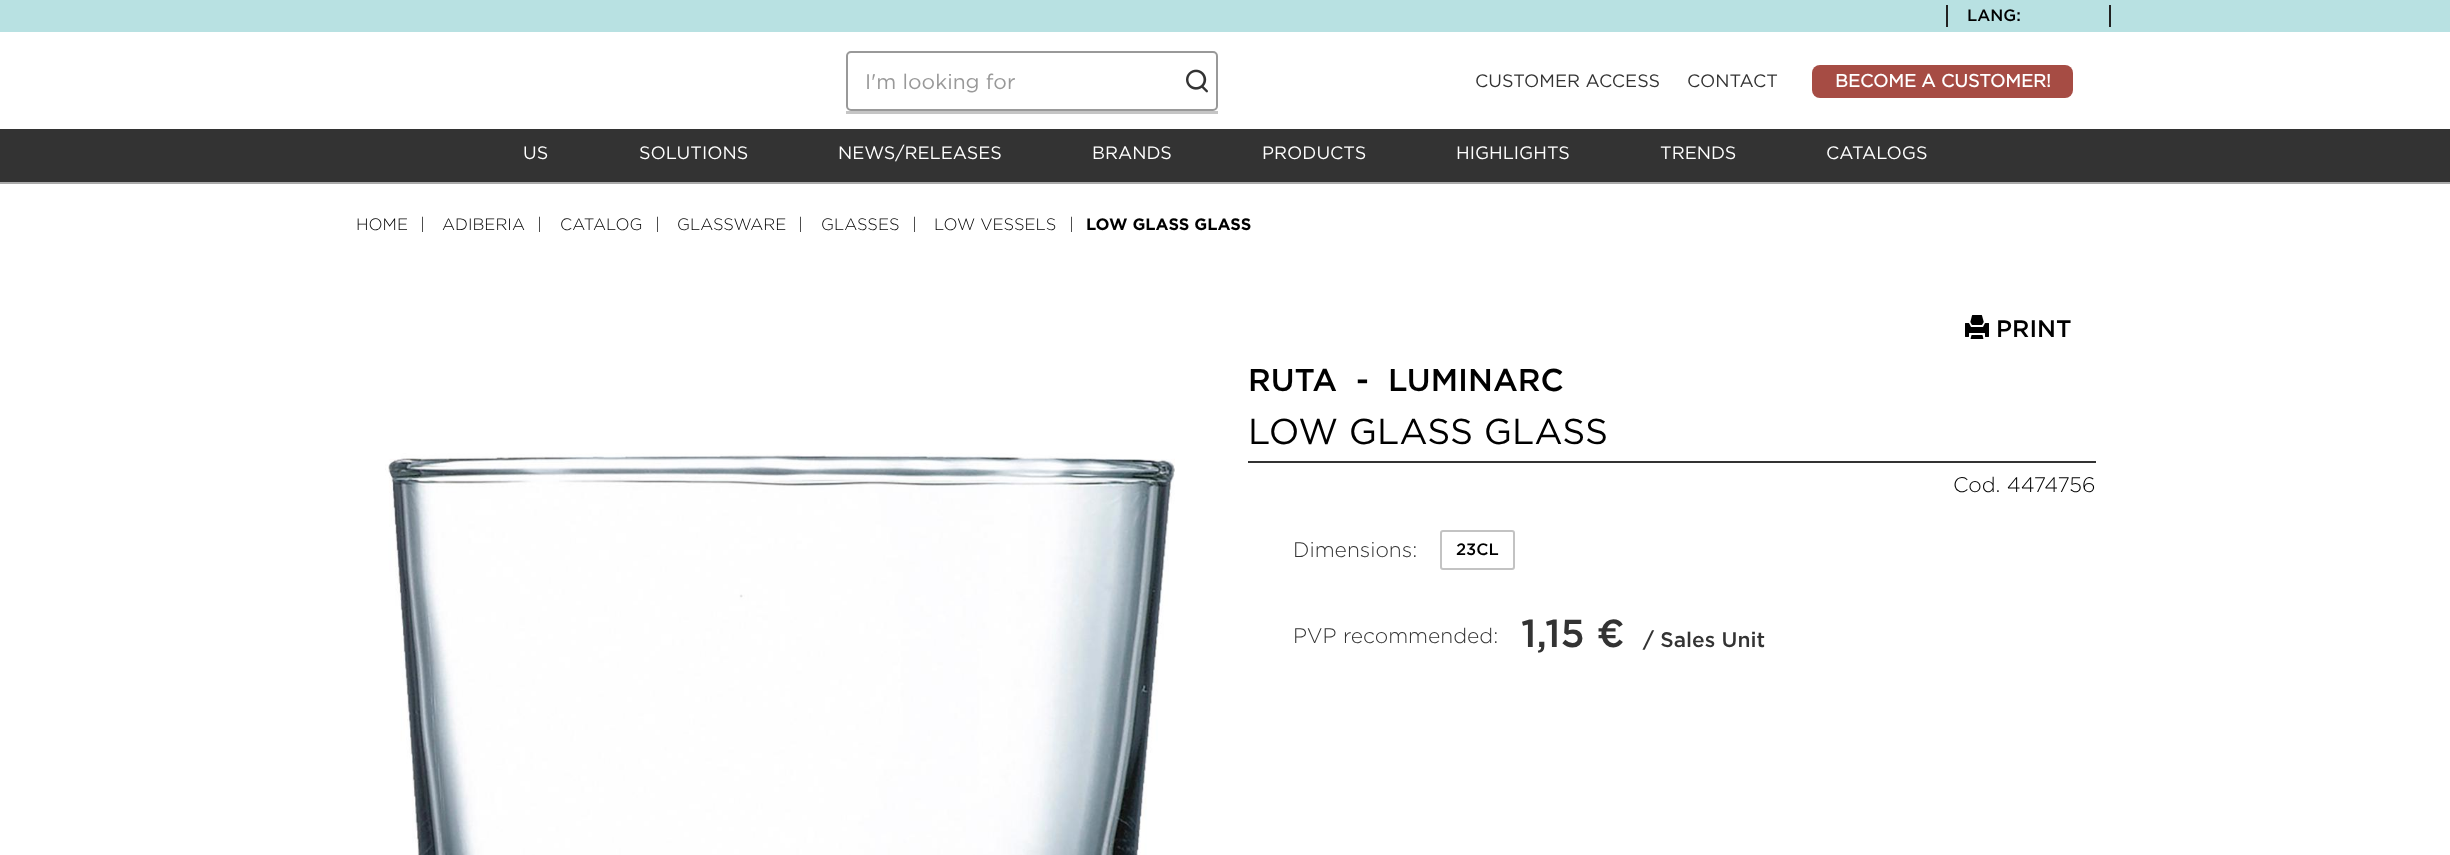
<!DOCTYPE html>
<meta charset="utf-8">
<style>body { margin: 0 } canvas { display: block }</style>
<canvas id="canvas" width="2450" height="855"></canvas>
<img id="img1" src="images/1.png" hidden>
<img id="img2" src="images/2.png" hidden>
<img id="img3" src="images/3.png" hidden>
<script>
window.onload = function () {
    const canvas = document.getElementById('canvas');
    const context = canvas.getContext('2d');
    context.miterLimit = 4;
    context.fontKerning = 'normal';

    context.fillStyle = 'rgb(255, 255, 255)';
    context.fillRect(0, 0, 2450, 855);
    context.fillStyle = 'rgb(184, 225, 226)';
    context.fillRect(0, 0, 2450, 32);
    context.fillStyle = 'rgb(34, 34, 34)';
    context.fillRect(2109, 5, 2, 22);
    context.fillRect(1946, 5, 2, 22);
    context.beginPath();
    context.roundRect(847, 52, 370, 58, 4);
    context.strokeStyle = 'rgb(153, 153, 153)';
    context.lineWidth = 2;
    context.stroke();
    context.drawImage(document.getElementById('img1'), 1186, 69, 22, 24);
    context.fillStyle = 'rgb(197, 197, 197)';
    context.fillRect(846, 111, 372, 3);
    context.fillStyle = 'rgb(166, 76, 68)';
    context.beginPath();
    context.roundRect(1812, 65, 261, 33, 8);
    context.fill();
    context.fillStyle = 'rgb(51, 51, 51)';
    context.fillRect(0, 129, 2450, 53);
    context.fillStyle = 'rgb(170, 170, 170)';
    context.fillRect(0, 182, 2450, 2);
    context.drawImage(document.getElementById('img2'), 385, 453, 790, 402);
    context.drawImage(document.getElementById('img3'), 1965, 315, 24, 24);
    context.fillStyle = 'rgb(51, 51, 51)';
    context.fillRect(1248, 461, 848, 2);
    context.beginPath();
    context.roundRect(1441, 531, 73, 38, 2);
    context.strokeStyle = 'rgb(195, 195, 195)';
    context.stroke();
    context.font = '500 16.5px Gotham';
    context.fillStyle = 'rgb(0, 0, 0)';
    context.fillText('LANG:', 1967, 21);
    context.font = '21px Gotham';
    context.fillStyle = 'rgb(153, 153, 153)';
    context.fillText('I\'m looking for', 865, 89);
    context.font = '18px Gotham';
    context.fillStyle = 'rgb(51, 51, 51)';
    context.fillText('CUSTOMER ACCESS', 1475, 87);
    context.fillText('CONTACT', 1687, 87);
    context.font = 'bold 18px Gotham';
    context.fillStyle = 'rgb(255, 255, 255)';
    context.fillText('BECOME A CUSTOMER!', 1835, 87);
    context.font = '18px Gotham';
    context.fillText('US', 523, 159);
    context.fillText('SOLUTIONS', 639, 159);
    context.fillText('NEWS/RELEASES', 838, 159);
    context.fillText('BRANDS', 1092, 159);
    context.fillText('PRODUCTS', 1262, 159);
    context.fillText('HIGHLIGHTS', 1456, 159);
    context.fillText('TRENDS', 1660, 159);
    context.fillText('CATALOGS', 1826, 159);
    context.font = '300 16.5px Gotham';
    context.fillStyle = 'rgb(0, 0, 0)';
    context.fillText('HOME', 356, 230);
    context.fillText('|', 420, 230);
    context.fillText('ADIBERIA', 442, 230);
    context.fillText('|', 537, 230);
    context.fillText('CATALOG', 560, 230);
    context.fillText('|', 655, 230);
    context.fillText('GLASSWARE', 677, 230);
    context.fillText('|', 798, 230);
    context.fillText('GLASSES', 821, 230);
    context.fillText('|', 912, 230);
    context.fillText('LOW VESSELS', 934, 230);
    context.fillText('|', 1069, 230);
    context.font = 'bold 16.5px "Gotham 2"';
    context.fillText('LOW GLASS GLASS', 1086, 230);
    context.font = '500 24px Gotham';
    context.fillText('PRINT', 1996, 337);
    context.font = '500 31.5px Gotham';
    context.fillText('RUTA', 1248, 391);
    context.fillText('-', 1356, 391);
    context.fillText('LUMINARC', 1388, 391);
    context.font = '36px Gotham';
    context.fillText('LOW GLASS GLASS', 1248, 444);
    context.font = '300 21px Gotham';
    context.fillText('Cod. 4474756', 1953, 492);
    context.fillStyle = 'rgb(51, 51, 51)';
    context.fillText('Dimensions:', 1293, 557);
    context.font = '500 16.5px Gotham';
    context.fillStyle = 'rgb(0, 0, 0)';
    context.fillText('23CL', 1456, 555);
    context.font = '300 21px Gotham';
    context.fillStyle = 'rgb(51, 51, 51)';
    context.fillText('PVP recommended:', 1293, 643);
    context.font = '500 39px Gotham';
    context.fillText('1,15 €', 1521, 647);
    context.font = '500 21px Gotham';
    context.fillText('/ Sales Unit', 1643, 647);
};
</script>
